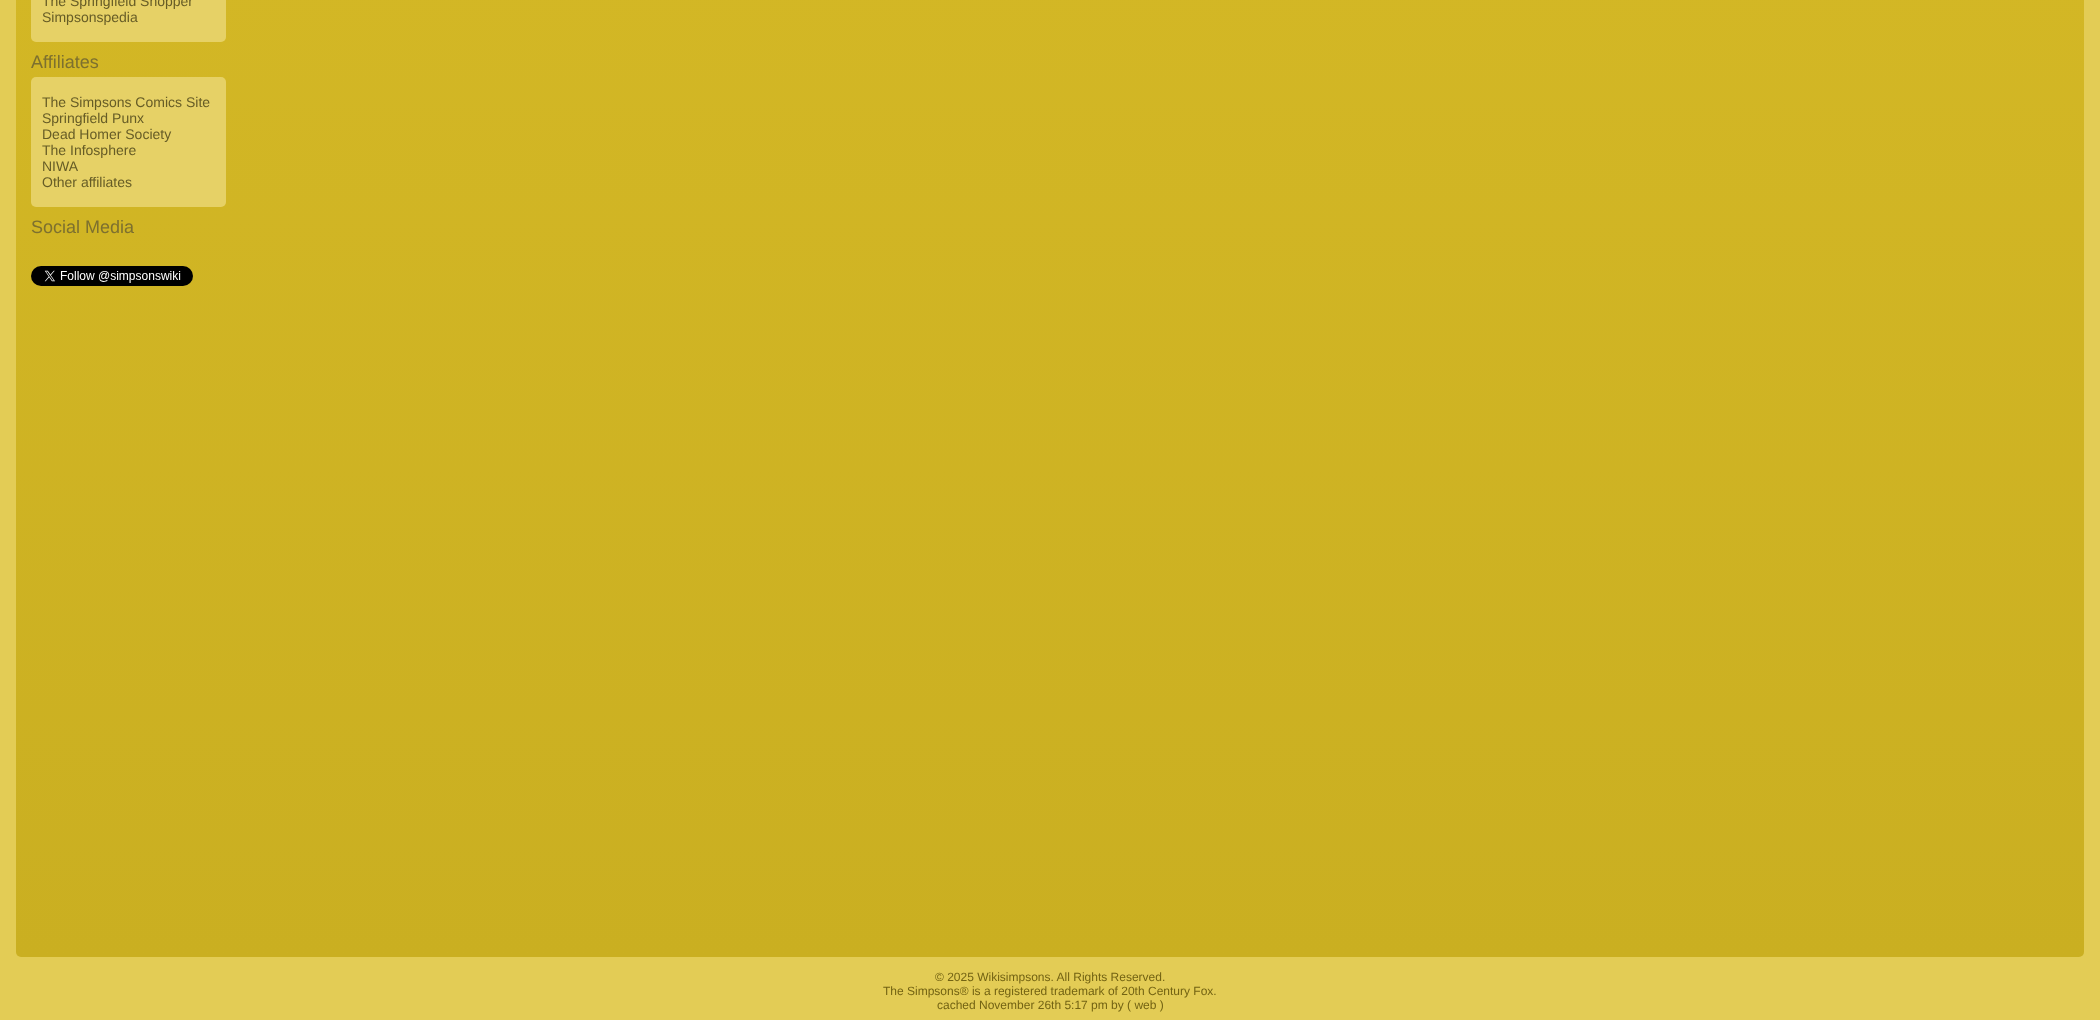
<!DOCTYPE html>
<meta charset="utf-8">
<style>body { margin: 0 } canvas { display: block }</style>
<canvas id="canvas" width="2100" height="1020"></canvas>
<img id="img1" src="images/1.png" hidden>
<script>
window.onload = function () {
    const canvas = document.getElementById('canvas');
    const context = canvas.getContext('2d');
    context.miterLimit = 4;
    context.fontKerning = 'normal';
    let gradient;

    context.fillStyle = 'rgb(227, 204, 85)';
    context.fillRect(0, 0, 2100, 1020);
    gradient = context.createLinearGradient(1050, -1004, 1050, 957);
    gradient.addColorStop(0, 'rgb(220, 191, 41)');
    gradient.addColorStop(1, 'rgb(202, 175, 33)');
    context.fillStyle = gradient;
    context.beginPath();
    context.roundRect(16, -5, 2068, 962, 5);
    context.fill();
    context.fillStyle = 'rgb(230, 209, 102)';
    context.beginPath();
    context.roundRect(31, -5, 195, 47, 5);
    context.fill();
    context.beginPath();
    context.roundRect(31, 77, 195, 130, 5);
    context.fill();
    context.drawImage(document.getElementById('img1'), 31, 266, 162, 20);
    context.font = '14px Liberation Sans';
    context.fillStyle = 'rgb(102, 92, 38)';
    context.fillText('The Springfield Shopper', 42, 6);
    context.fillText('Simpsonspedia', 42, 22);
    context.font = '18px Liberation Sans';
    context.fillStyle = 'rgb(125, 112, 47)';
    context.fillText('Affiliates', 31, 68);
    context.font = '14px Liberation Sans';
    context.fillStyle = 'rgb(102, 92, 38)';
    context.fillText('The Simpsons Comics Site', 42, 107);
    context.fillText('Springfield Punx', 42, 123);
    context.fillText('Dead Homer Society', 42, 139);
    context.fillText('The Infosphere', 42, 155);
    context.fillText('NIWA', 42, 171);
    context.fillText('Other affiliates', 42, 187);
    context.font = '18px Liberation Sans';
    context.fillStyle = 'rgb(125, 112, 47)';
    context.fillText('Social Media', 31, 233);
    context.font = '12px Liberation Sans';
    context.fillStyle = 'rgb(115, 99, 19)';
    context.fillText('© 2025 Wikisimpsons. All Rights Reserved.', 935, 981);
    context.fillText('The Simpsons® is a registered trademark of 20th Century Fox.', 883, 995);
    context.fillText('cached November 26th 5:17 pm by ( web )', 937, 1009);
};
</script>
